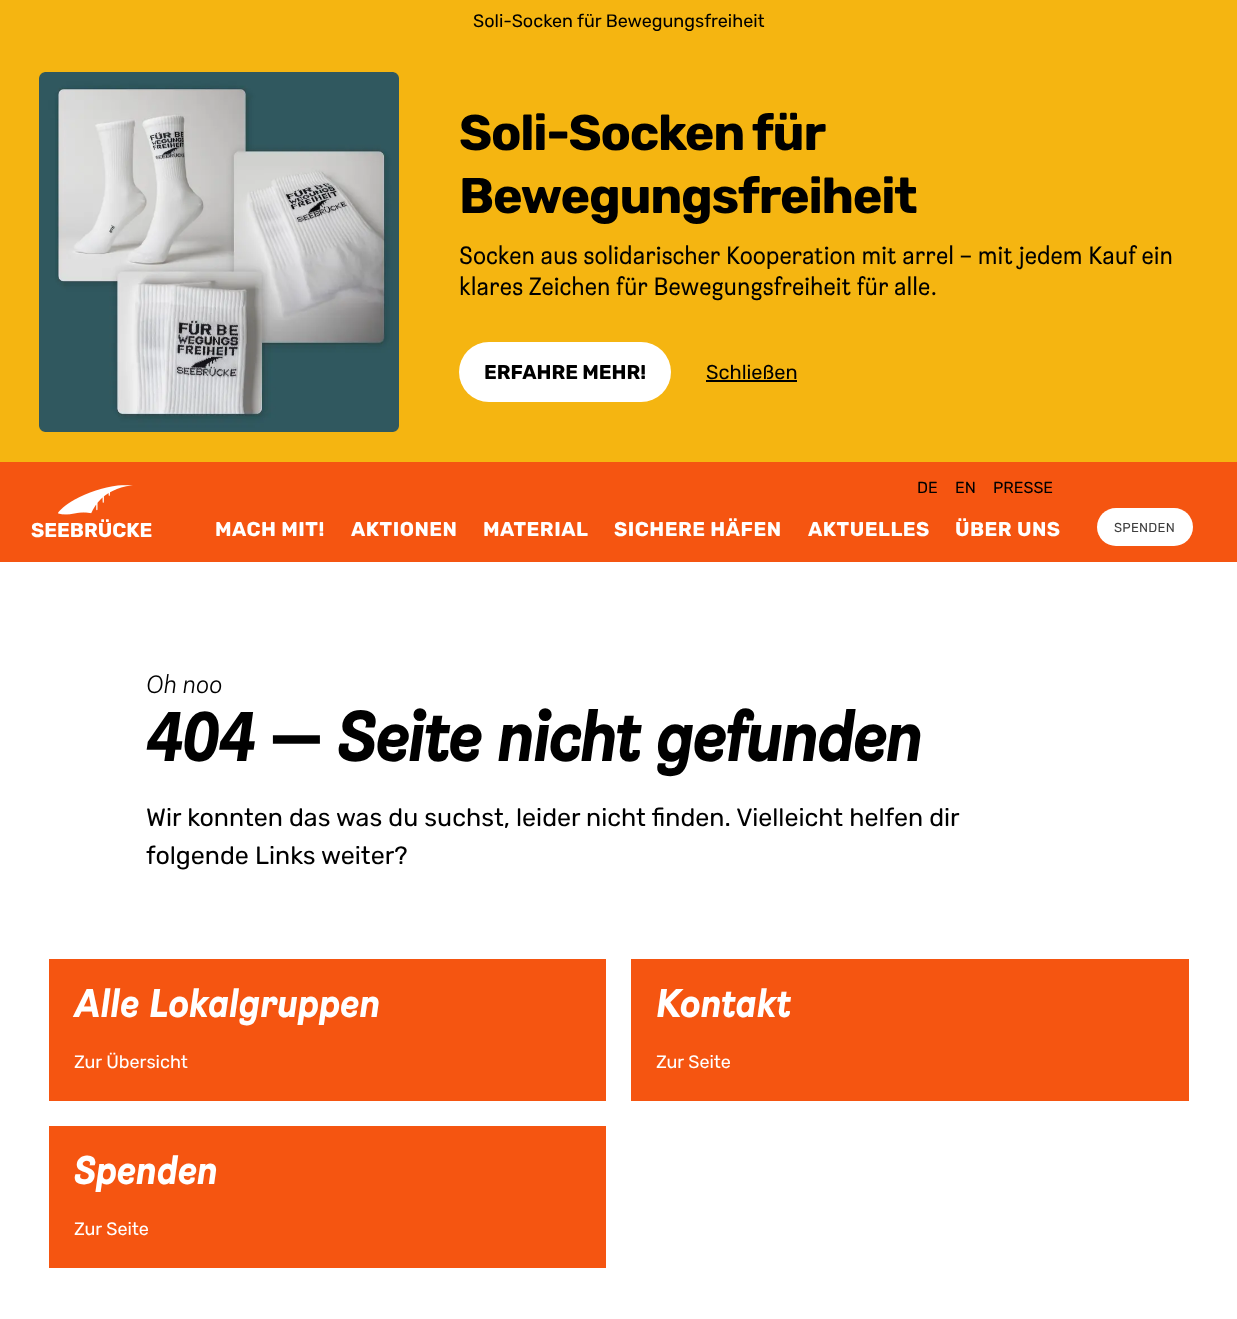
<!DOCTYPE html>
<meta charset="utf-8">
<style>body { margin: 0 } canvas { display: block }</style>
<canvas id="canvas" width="1237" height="1319"></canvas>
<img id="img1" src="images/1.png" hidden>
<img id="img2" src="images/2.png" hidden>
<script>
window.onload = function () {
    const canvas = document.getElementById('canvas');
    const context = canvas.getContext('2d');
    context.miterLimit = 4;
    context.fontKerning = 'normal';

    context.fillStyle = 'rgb(255, 255, 255)';
    context.fillRect(0, 0, 1237, 1319);
    context.fillStyle = 'rgb(245, 181, 17)';
    context.fillRect(0, 0, 1237, 462);
    context.drawImage(document.getElementById('img1'), 39, 72, 360, 360);
    context.fillStyle = 'rgb(255, 255, 255)';
    context.beginPath();
    context.roundRect(459, 342, 212, 60, 30);
    context.fill();
    context.fillStyle = 'rgb(0, 0, 0)';
    context.fillRect(706, 380, 91, 2);
    context.fillStyle = 'rgb(245, 85, 17)';
    context.fillRect(0, 462, 1237, 100);
    context.drawImage(document.getElementById('img2'), 58, 485, 75, 30);
    context.fillStyle = 'rgb(255, 255, 255)';
    context.beginPath();
    context.roundRect(1097, 508, 96, 38, 19);
    context.fill();
    context.fillStyle = 'rgb(245, 85, 17)';
    context.fillRect(49, 959, 557, 142);
    context.fillRect(631, 959, 558, 142);
    context.fillRect(49, 1126, 557, 142);
    context.font = '18px Rubik';
    context.fillStyle = 'rgb(0, 0, 0)';
    context.fillText('Soli-Socken für Bewegungsfreiheit', 473, 27);
    context.letterSpacing = '-1.25px';
    context.wordSpacing = '-1px';
    context.font = 'bold 50px Rubik';
    context.fillText('Soli-Socken für', 459, 150);
    context.wordSpacing = '0px';
    context.fillText('Bewegungsfreiheit', 459, 213);
    context.letterSpacing = '0px';
    context.font = '25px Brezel';
    context.fillText('Socken aus solidarischer Kooperation mit arrel – mit jedem Kauf ein', 459, 264);
    context.fillText('klares Zeichen für Bewegungsfreiheit für alle.', 459, 295);
    context.font = 'bold 20px Rubik';
    context.fillText('ERFAHRE MEHR!', 484, 379);
    context.font = '20px Rubik';
    context.fillText('Schließen', 706, 379);
    context.font = 'bold 20px Rubik';
    context.fillStyle = 'rgb(255, 255, 255)';
    context.fillText('SEEBRÜCKE', 31, 537);
    context.font = '16px Rubik';
    context.fillStyle = 'rgb(0, 0, 0)';
    context.fillText('DE', 917, 493);
    context.fillText('EN', 955, 493);
    context.fillText('PRESSE', 993, 493);
    context.letterSpacing = '0.5px';
    context.font = 'bold 20px Rubik';
    context.fillStyle = 'rgb(255, 255, 255)';
    context.fillText('MACH MIT!', 215, 536);
    context.fillText('AKTIONEN', 351, 536);
    context.fillText('MATERIAL', 483, 536);
    context.fillText('SICHERE HÄFEN', 614, 536);
    context.fillText('AKTUELLES', 808, 536);
    context.fillText('ÜBER UNS', 955, 536);
    context.letterSpacing = '0.25px';
    context.font = '13px Rubik';
    context.fillStyle = 'rgb(62, 62, 62)';
    context.fillText('SPENDEN', 1114, 532);
    context.letterSpacing = '0px';
    context.font = 'italic 300 25px Brezel';
    context.fillStyle = 'rgb(0, 0, 0)';
    context.fillText('Oh noo', 146, 693);
    context.letterSpacing = '-1.8px';
    context.font = 'italic bold 72px Brezel';
    context.fillText('404 — Seite nicht gefunden', 146, 761);
    context.letterSpacing = '0px';
    context.font = '25px Rubik';
    context.fillText('Wir konnten das was du suchst, leider nicht finden. Vielleicht helfen dir', 146, 826);
    context.fillText('folgende Links weiter?', 146, 864);
    context.font = 'italic bold 40px Brezel';
    context.fillStyle = 'rgb(255, 255, 255)';
    context.fillText('Alle Lokalgruppen', 74, 1017);
    context.font = '18px Rubik';
    context.fillText('Zur Übersicht', 74, 1068);
    context.font = 'italic bold 40px Brezel';
    context.fillText('Kontakt', 656, 1017);
    context.font = '18px Rubik';
    context.fillText('Zur Seite', 656, 1068);
    context.font = 'italic bold 40px Brezel';
    context.fillText('Spenden', 74, 1184);
    context.font = '18px Rubik';
    context.fillText('Zur Seite', 74, 1235);
};
</script>
